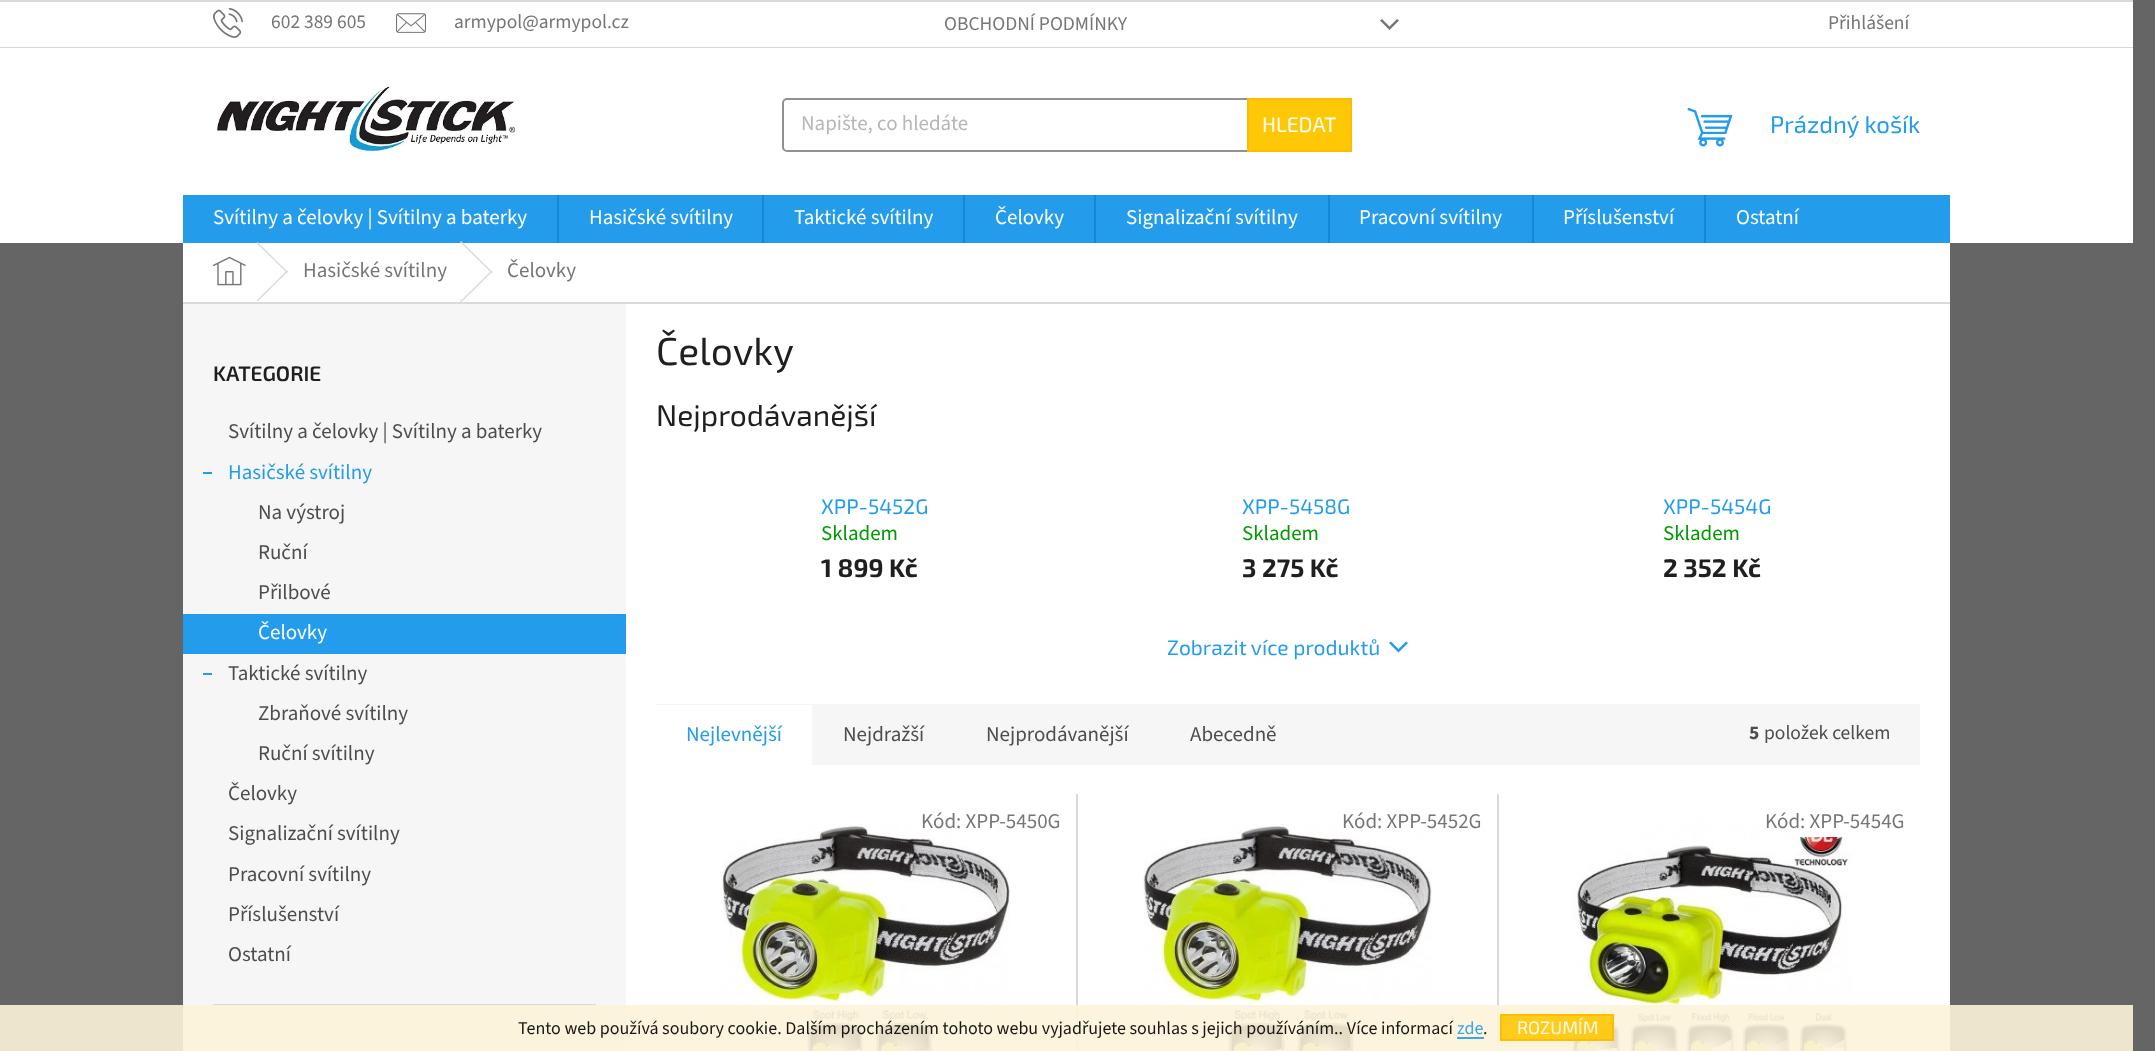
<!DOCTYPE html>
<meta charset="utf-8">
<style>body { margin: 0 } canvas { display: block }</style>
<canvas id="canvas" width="2155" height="1051"></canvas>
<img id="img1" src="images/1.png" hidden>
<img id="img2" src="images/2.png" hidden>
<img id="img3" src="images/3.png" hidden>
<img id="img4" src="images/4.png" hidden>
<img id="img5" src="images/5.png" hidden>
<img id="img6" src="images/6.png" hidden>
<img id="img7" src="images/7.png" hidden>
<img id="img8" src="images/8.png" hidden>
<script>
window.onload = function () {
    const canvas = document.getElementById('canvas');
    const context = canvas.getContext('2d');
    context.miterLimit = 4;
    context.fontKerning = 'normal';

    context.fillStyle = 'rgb(101, 101, 101)';
    context.fillRect(0, 0, 2155, 1051);
    context.fillStyle = 'rgb(255, 255, 255)';
    context.fillRect(0, 2, 2133, 45);
    context.fillStyle = 'rgb(218, 218, 218)';
    context.fillRect(0, 0, 2133, 2);
    context.fillRect(0, 47, 2133, 1);
    context.drawImage(document.getElementById('img1'), 213, 7, 30, 31);
    context.drawImage(document.getElementById('img2'), 396, 13, 30, 20);
    context.fillStyle = 'rgb(118, 118, 118)';
    context.beginPath();
    context.moveTo(1380, 20.5);
    context.lineTo(1382, 19);
    context.lineTo(1389.5, 26.5);
    context.lineTo(1397, 19);
    context.lineTo(1399, 20.5);
    context.lineTo(1389.5, 30);
    context.closePath();
    context.fill();
    context.fillStyle = 'rgb(255, 255, 255)';
    context.fillRect(0, 48, 2133, 195);
    context.drawImage(document.getElementById('img3'), 216, 86, 299, 67);
    context.beginPath();
    context.roundRect(783, 99, 568, 52, 4);
    context.strokeStyle = 'rgb(145, 145, 145)';
    context.lineWidth = 2;
    context.stroke();
    context.fillStyle = 'rgb(255, 200, 7)';
    context.beginPath();
    context.rect(1248, 99, 103, 52);
    context.fill();
    context.strokeStyle = 'rgb(255, 187, 0)';
    context.stroke();
    context.drawImage(document.getElementById('img4'), 1687, 107, 46, 40);
    context.fillStyle = 'rgb(35, 156, 235)';
    context.fillRect(183, 195, 1767, 48);
    context.fillStyle = 'rgb(20, 137, 215)';
    context.fillRect(557, 195, 2, 48);
    context.fillRect(762, 195, 2, 48);
    context.fillRect(963, 195, 2, 48);
    context.fillRect(1094, 195, 2, 48);
    context.fillRect(1328, 195, 2, 48);
    context.fillRect(1532, 195, 2, 48);
    context.fillRect(1704, 195, 2, 48);
    context.fillStyle = 'rgb(255, 255, 255)';
    context.fillRect(183, 243, 1767, 59);
    context.fillStyle = 'rgb(218, 218, 218)';
    context.fillRect(183, 302, 1767, 2);
    context.drawImage(document.getElementById('img5'), 212, 256, 34, 30);
    context.beginPath();
    context.moveTo(256.5, 243);
    context.lineTo(257.5, 242);
    context.lineTo(288, 272);
    context.lineTo(287, 273);
    context.closePath();
    context.fill();
    context.beginPath();
    context.moveTo(287, 270.5);
    context.lineTo(288, 271.5);
    context.lineTo(257.5, 301.5);
    context.lineTo(256.5, 300.5);
    context.closePath();
    context.fill();
    context.beginPath();
    context.moveTo(460, 242);
    context.lineTo(461, 241);
    context.lineTo(492.5, 272);
    context.lineTo(491.5, 273);
    context.closePath();
    context.fill();
    context.beginPath();
    context.moveTo(491.5, 270.5);
    context.lineTo(492.5, 271.5);
    context.lineTo(461, 302.5);
    context.lineTo(460, 301.5);
    context.closePath();
    context.fill();
    context.fillStyle = 'rgb(255, 255, 255)';
    context.fillRect(626, 304, 1324, 747);
    context.fillStyle = 'rgb(246, 246, 246)';
    context.fillRect(183, 304, 443, 747);
    context.fillStyle = 'rgb(218, 218, 218)';
    context.fillRect(213, 1004, 383, 2);
    context.fillStyle = 'rgb(35, 156, 235)';
    context.fillRect(203, 472, 9, 2);
    context.fillRect(183, 614, 443, 40);
    context.fillRect(203, 673, 9, 2);
    context.beginPath();
    context.moveTo(1389, 643);
    context.lineTo(1391, 641.5);
    context.lineTo(1398.5, 649);
    context.lineTo(1406, 641.5);
    context.lineTo(1408, 643);
    context.lineTo(1398.5, 652.5);
    context.closePath();
    context.fill();
    context.fillStyle = 'rgb(246, 246, 246)';
    context.fillRect(656, 704, 1264, 61);
    context.fillStyle = 'rgb(255, 255, 255)';
    context.fillRect(656, 705, 156, 60);
    context.fillStyle = 'rgb(218, 218, 218)';
    context.fillRect(1076, 794, 2, 257);
    context.drawImage(document.getElementById('img6'), 721, 823, 289, 228);
    context.fillRect(1497, 794, 2, 257);
    context.drawImage(document.getElementById('img7'), 1142, 823, 290, 228);
    context.drawImage(document.getElementById('img8'), 1572, 812, 281, 239);
    context.fillStyle = 'rgb(255, 255, 255)';
    context.fillRect(1793, 812, 54, 25);
    context.fillStyle = 'rgba(253, 243, 218, 0.9)';
    context.fillRect(0, 1005, 2133, 46);
    context.fillStyle = 'rgb(57, 166, 237)';
    context.fillRect(1457, 1037, 27, 2);
    context.fillStyle = 'rgba(255, 200, 7, 0.9)';
    context.fillRect(1500, 1014, 114, 27);
    context.strokeStyle = 'rgba(255, 187, 0, 0.9)';
    context.strokeRect(1501, 1015, 112, 25);
    context.font = '19.5px "Source Sans 3"';
    context.fillStyle = 'rgb(118, 118, 118)';
    context.fillText('602 389 605', 271, 28);
    context.fillText('armypol@armypol.cz', 454, 28);
    context.fillText('OBCHODNÍ PODMÍNKY', 944, 30);
    context.fillText('Přihlášení', 1828, 29);
    context.font = '21px "Source Sans 3"';
    context.fillStyle = 'rgb(182, 182, 182)';
    context.fillText('Napište, co hledáte', 801, 130);
    context.font = '21px "Exo 2"';
    context.fillStyle = 'rgb(255, 255, 255)';
    context.fillText('HLEDAT', 1262, 132);
    context.font = '24px "Exo 2"';
    context.fillStyle = 'rgb(35, 156, 235)';
    context.fillText('Prázdný košík', 1770, 133);
    context.font = '21px "Source Sans 3"';
    context.fillStyle = 'rgb(255, 255, 255)';
    context.fillText('Svítilny a čelovky | Svítilny a baterky', 213, 224);
    context.fillText('Hasičské svítilny', 589, 224);
    context.fillText('Taktické svítilny', 794, 224);
    context.fillText('Čelovky', 995, 224);
    context.fillText('Signalizační svítilny', 1126, 224);
    context.fillText('Pracovní svítilny', 1359, 224);
    context.fillText('Příslušenství', 1563, 224);
    context.fillText('Ostatní', 1736, 224);
    context.fillStyle = 'rgb(118, 118, 118)';
    context.fillText('Hasičské svítilny', 303, 277);
    context.fillText('Čelovky', 507, 277);
    context.font = '600 21px "Exo 2"';
    context.fillStyle = 'rgb(31, 31, 31)';
    context.fillText('KATEGORIE', 213, 381);
    context.font = '21px "Source Sans 3"';
    context.fillStyle = 'rgb(77, 77, 77)';
    context.fillText('Svítilny a čelovky | Svítilny a baterky', 228, 438);
    context.fillStyle = 'rgb(35, 156, 235)';
    context.fillText('Hasičské svítilny', 228, 479);
    context.fillStyle = 'rgb(77, 77, 77)';
    context.fillText('Na výstroj', 258, 519);
    context.fillText('Ruční', 258, 559);
    context.fillText('Přilbové', 258, 599);
    context.fillStyle = 'rgb(255, 255, 255)';
    context.fillText('Čelovky', 258, 639);
    context.fillStyle = 'rgb(77, 77, 77)';
    context.fillText('Taktické svítilny', 228, 680);
    context.fillText('Zbraňové svítilny', 258, 720);
    context.fillText('Ruční svítilny', 258, 760);
    context.fillText('Čelovky', 228, 800);
    context.fillText('Signalizační svítilny', 228, 840);
    context.fillText('Pracovní svítilny', 228, 881);
    context.fillText('Příslušenství', 228, 921);
    context.fillText('Ostatní', 228, 961);
    context.font = '39px "Exo 2"';
    context.fillStyle = 'rgb(31, 31, 31)';
    context.fillText('Čelovky', 656, 365);
    context.font = '30px "Exo 2"';
    context.fillText('Nejprodávanější', 656, 426);
    context.font = '21px "Exo 2"';
    context.fillStyle = 'rgb(35, 156, 235)';
    context.fillText('XPP-5452G', 821, 514);
    context.font = '21px "Source Sans 3"';
    context.fillStyle = 'rgb(0, 153, 1)';
    context.fillText('Skladem', 821, 540);
    context.font = 'bold 25.5px "Exo 2"';
    context.fillStyle = 'rgb(31, 31, 31)';
    context.fillText('1 899 Kč', 821, 577);
    context.font = '21px "Exo 2"';
    context.fillStyle = 'rgb(35, 156, 235)';
    context.fillText('XPP-5458G', 1242, 514);
    context.font = '21px "Source Sans 3"';
    context.fillStyle = 'rgb(0, 153, 1)';
    context.fillText('Skladem', 1242, 540);
    context.font = 'bold 25.5px "Exo 2"';
    context.fillStyle = 'rgb(31, 31, 31)';
    context.fillText('3 275 Kč', 1242, 577);
    context.font = '21px "Exo 2"';
    context.fillStyle = 'rgb(35, 156, 235)';
    context.fillText('XPP-5454G', 1663, 514);
    context.font = '21px "Source Sans 3"';
    context.fillStyle = 'rgb(0, 153, 1)';
    context.fillText('Skladem', 1663, 540);
    context.font = 'bold 25.5px "Exo 2"';
    context.fillStyle = 'rgb(31, 31, 31)';
    context.fillText('2 352 Kč', 1663, 577);
    context.font = '21px "Exo 2"';
    context.fillStyle = 'rgb(35, 156, 235)';
    context.fillText('Zobrazit více produktů', 1167, 655);
    context.font = '21px "Source Sans 3"';
    context.fillText('Nejlevnější', 686, 741);
    context.fillStyle = 'rgb(77, 77, 77)';
    context.fillText('Nejdražší', 843, 741);
    context.fillText('Nejprodávanější', 986, 741);
    context.fillText('Abecedně', 1190, 741);
    context.font = 'bold 19.5px "Source Sans 3"';
    context.fillText('5', 1749, 739);
    context.font = '19.5px "Source Sans 3"';
    context.fillText('položek celkem', 1764, 739);
    context.font = '21px "Source Sans 3"';
    context.fillStyle = 'rgb(118, 118, 118)';
    context.fillText('Kód: XPP-5450G', 921, 828);
    context.fillText('Kód: XPP-5452G', 1342, 828);
    context.fillText('Kód: XPP-5454G', 1765, 828);
    context.font = '18px "Source Sans 3"';
    context.fillStyle = 'rgb(25, 24, 22)';
    context.fillText('Tento web používá soubory cookie. Dalším procházením tohoto webu vyjadřujete souhlas s jejich používáním.. Více informací', 518, 1034);
    context.fillStyle = 'rgb(57, 166, 237)';
    context.fillText('zde', 1457, 1034);
    context.fillStyle = 'rgb(31, 31, 31)';
    context.fillText('.', 1483, 1034);
    context.font = '18px "Exo 2"';
    context.fillStyle = 'rgb(255, 250, 232)';
    context.fillText('ROZUMÍM', 1517, 1034);
};
</script>
